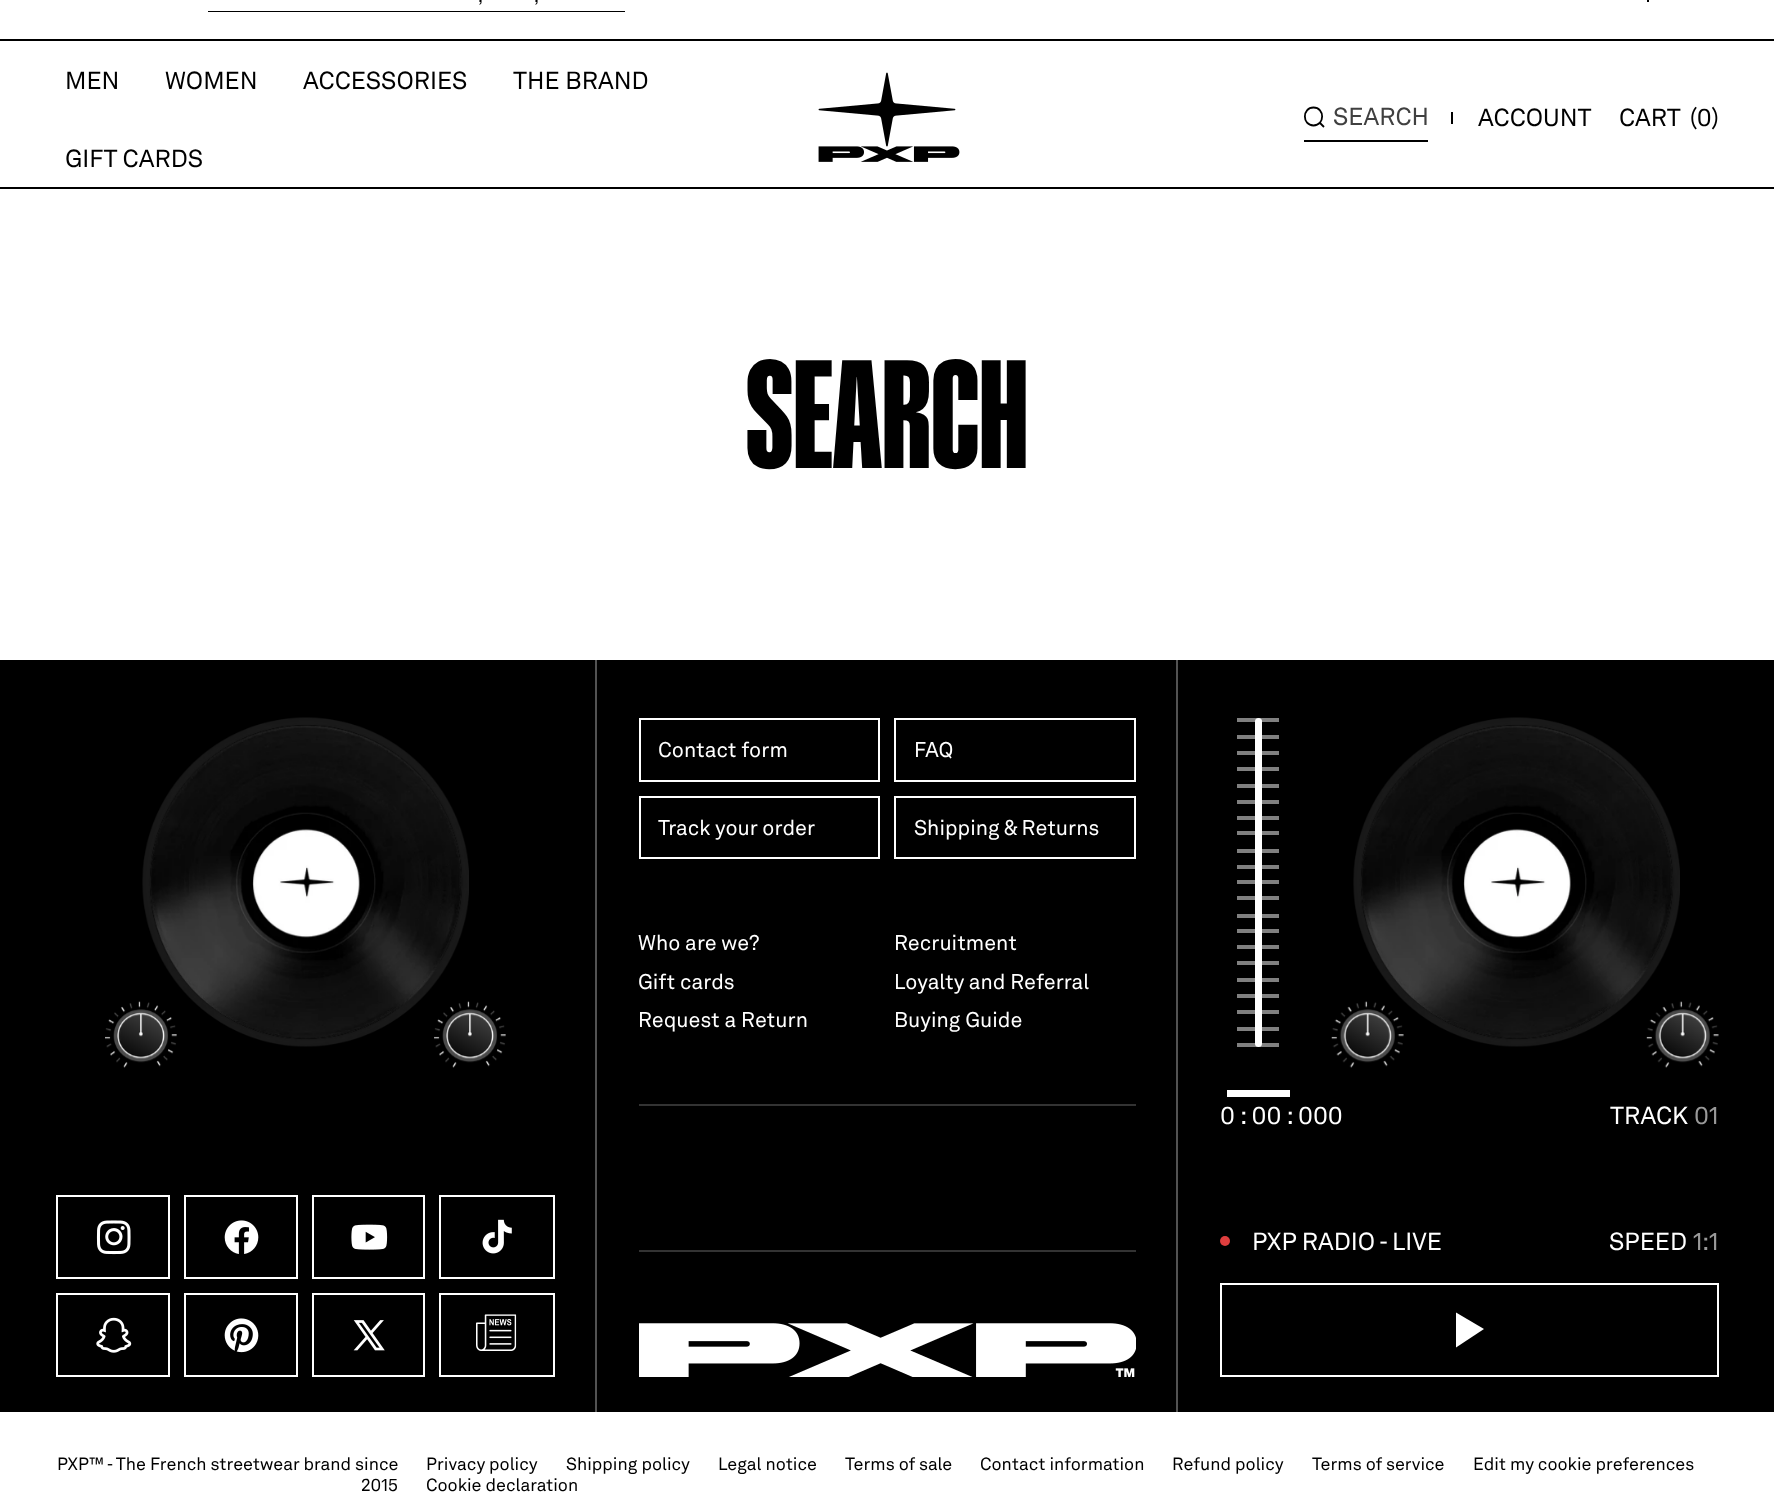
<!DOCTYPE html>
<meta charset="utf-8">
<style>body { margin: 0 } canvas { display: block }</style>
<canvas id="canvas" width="1774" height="1511"></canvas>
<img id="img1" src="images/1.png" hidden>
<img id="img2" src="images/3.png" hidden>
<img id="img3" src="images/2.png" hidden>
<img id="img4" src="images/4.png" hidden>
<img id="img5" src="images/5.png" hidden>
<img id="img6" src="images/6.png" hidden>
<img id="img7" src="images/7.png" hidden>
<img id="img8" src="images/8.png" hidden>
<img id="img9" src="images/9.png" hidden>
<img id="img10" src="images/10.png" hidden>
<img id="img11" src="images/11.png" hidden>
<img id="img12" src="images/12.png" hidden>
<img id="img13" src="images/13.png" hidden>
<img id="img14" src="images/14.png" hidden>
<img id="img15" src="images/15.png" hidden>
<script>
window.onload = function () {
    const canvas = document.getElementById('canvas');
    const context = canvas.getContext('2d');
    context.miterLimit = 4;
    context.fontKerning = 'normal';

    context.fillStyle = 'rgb(255, 255, 255)';
    context.fillRect(0, 0, 1774, 1511);
    context.fillStyle = 'rgb(0, 0, 0)';
    context.fillRect(208, 11, 417, 1);
    context.fillRect(1647, 0, 2, 2);
    context.fillRect(0, 39, 1774, 2);
    context.fillRect(0, 187, 1774, 2);
    context.drawImage(document.getElementById('img1'), 818, 72, 142, 90);
    context.fillRect(1304, 140, 124, 2);
    context.beginPath();
    context.moveTo(1313.5, 125.5);
    context.bezierCurveTo(1325, 125.5, 1325, 107.5, 1313.5, 107.5);
    context.bezierCurveTo(1302, 107.5, 1302, 125.5, 1313.5, 125.5);
    context.closePath();
    context.moveTo(1319.5, 122.5);
    context.lineTo(1324, 127);
    context.strokeStyle = 'rgb(0, 0, 0)';
    context.lineWidth = 1.8;
    context.stroke();
    context.fillRect(1451, 112, 2, 12);
    context.fillRect(0, 660, 1774, 752);
    context.fillStyle = 'rgb(128, 128, 128)';
    context.fillRect(1237, 1027, 42, 4);
    context.fillRect(1237, 1010, 42, 4);
    context.fillRect(1237, 994, 42, 4);
    context.fillRect(1237, 978, 42, 4);
    context.fillRect(1237, 961, 42, 4);
    context.fillRect(1237, 945, 42, 4);
    context.fillRect(1237, 929, 42, 4);
    context.fillRect(1237, 914, 42, 4);
    context.fillRect(1237, 896, 42, 4);
    context.fillRect(1237, 880, 42, 4);
    context.fillRect(1237, 865, 42, 4);
    context.fillRect(1237, 849, 42, 4);
    context.fillRect(1237, 831, 42, 4);
    context.fillRect(1237, 816, 42, 4);
    context.fillRect(1237, 800, 42, 4);
    context.fillRect(1237, 784, 42, 4);
    context.fillRect(1237, 767, 42, 4);
    context.fillRect(1237, 751, 42, 4);
    context.fillRect(1237, 735, 42, 4);
    context.drawImage(document.getElementById('img2'), 142, 717, 327, 330);
    context.drawImage(document.getElementById('img3'), 105, 1001, 72, 67);
    context.drawImage(document.getElementById('img4'), 434, 1001, 72, 67);
    context.fillStyle = 'rgb(82, 82, 82)';
    context.fillRect(595, 660, 2, 752);
    context.strokeStyle = 'rgb(255, 255, 255)';
    context.lineWidth = 2;
    context.strokeRect(57, 1196, 112, 82);
    context.drawImage(document.getElementById('img5'), 96, 1220, 35, 35);
    context.strokeRect(185, 1196, 112, 82);
    context.drawImage(document.getElementById('img6'), 224, 1220, 35, 34);
    context.strokeRect(313, 1196, 111, 82);
    context.drawImage(document.getElementById('img7'), 351, 1224, 37, 26);
    context.strokeRect(440, 1196, 114, 82);
    context.drawImage(document.getElementById('img8'), 482, 1219, 30, 35);
    context.strokeRect(57, 1294, 112, 82);
    context.drawImage(document.getElementById('img9'), 96, 1317, 36, 36);
    context.strokeRect(185, 1294, 112, 82);
    context.drawImage(document.getElementById('img10'), 224, 1318, 35, 35);
    context.strokeRect(313, 1294, 111, 82);
    context.drawImage(document.getElementById('img11'), 353, 1320, 32, 31);
    context.strokeRect(440, 1294, 114, 82);
    context.drawImage(document.getElementById('img12'), 476, 1314, 41, 37);
    context.strokeRect(640, 719, 239, 62);
    context.strokeRect(895, 719, 240, 62);
    context.strokeRect(640, 797, 239, 61);
    context.strokeRect(895, 797, 240, 61);
    context.fillRect(1176, 660, 2, 752);
    context.fillStyle = 'rgb(51, 51, 51)';
    context.fillRect(639, 1104, 497, 2);
    context.fillRect(639, 1250, 497, 2);
    context.drawImage(document.getElementById('img13'), 639, 1323, 497, 54);
    context.fillStyle = 'rgb(255, 255, 255)';
    context.beginPath();
    context.roundRect(1255, 718, 7, 329, 3.5);
    context.fill();
    context.fillStyle = 'rgba(255, 255, 255, 0.5)';
    context.fillRect(1237, 718, 42, 4);
    context.fillRect(1237, 1043, 42, 4);
    context.fillStyle = 'rgb(255, 255, 255)';
    context.fillRect(1227, 1090, 63, 7);
    context.drawImage(document.getElementById('img2'), 1353, 717, 327, 330);
    context.drawImage(document.getElementById('img14'), 1331, 1001, 73, 67);
    context.drawImage(document.getElementById('img15'), 1646, 1001, 73, 67);
    context.fillStyle = 'rgb(223, 62, 62)';
    context.beginPath();
    context.arc(1225, 1241, 5, 0, 2 * Math.PI);
    context.fill();
    context.strokeRect(1221, 1284, 497, 92);
    context.fillStyle = 'rgb(255, 255, 255)';
    context.beginPath();
    context.moveTo(1456, 1312.5);
    context.lineTo(1456, 1347.5);
    context.lineTo(1484, 1329);
    context.closePath();
    context.fill();
    context.font = '17.5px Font';
    context.fillStyle = 'rgb(0, 0, 0)';
    context.fillText(',', 478, 2);
    context.fillText(',', 534, 2);
    context.font = '24.5px Font';
    context.fillText('MEN', 65, 89);
    context.fillText('WOMEN', 165, 89);
    context.fillText('ACCESSORIES', 303, 89);
    context.fillText('THE BRAND', 513, 89);
    context.fillText('GIFT CARDS', 65, 167);
    context.fillStyle = 'rgb(64, 64, 64)';
    context.fillText('SEARCH', 1333, 125);
    context.fillStyle = 'rgb(0, 0, 0)';
    context.fillText('ACCOUNT', 1478, 126);
    context.fillText('CART', 1619, 126);
    context.fillText('(0)', 1690, 126);
    context.font = '900 154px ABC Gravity';
    context.fillText('SEARCH', 746, 468);
    context.font = '21px Font';
    context.fillStyle = 'rgb(255, 255, 255)';
    context.fillText('Contact form', 658, 757);
    context.fillText('FAQ', 914, 757);
    context.fillText('Track your order', 658, 835);
    context.fillText('Shipping & Returns', 914, 835);
    context.fillText('Who are we?', 638, 950);
    context.fillText('Recruitment', 894, 950);
    context.fillText('Gift cards', 638, 989);
    context.fillText('Loyalty and Referral', 894, 989);
    context.fillText('Request a Return', 638, 1027);
    context.fillText('Buying Guide', 894, 1027);
    context.font = '24.5px Font';
    context.fillText('0 : 00 : 000', 1220, 1124);
    context.fillText('TRACK', 1610, 1124);
    context.fillStyle = 'rgb(153, 153, 153)';
    context.fillText('01', 1694, 1124);
    context.fillStyle = 'rgb(255, 255, 255)';
    context.fillText('PXP RADIO - LIVE', 1252, 1250);
    context.fillText('SPEED', 1609, 1250);
    context.fillStyle = 'rgb(153, 153, 153)';
    context.fillText('1:1', 1693, 1250);
    context.font = '17.5px Font';
    context.fillStyle = 'rgb(0, 0, 0)';
    context.fillText('PXP™ - The French streetwear brand since', 57, 1470);
    context.fillText('2015', 361, 1491);
    context.fillText('Privacy policy', 426, 1470);
    context.fillText('Shipping policy', 566, 1470);
    context.fillText('Legal notice', 718, 1470);
    context.fillText('Terms of sale', 845, 1470);
    context.fillText('Contact information', 980, 1470);
    context.fillText('Refund policy', 1172, 1470);
    context.fillText('Terms of service', 1312, 1470);
    context.fillText('Edit my cookie preferences', 1473, 1470);
    context.fillText('Cookie declaration', 426, 1491);
};
</script>
